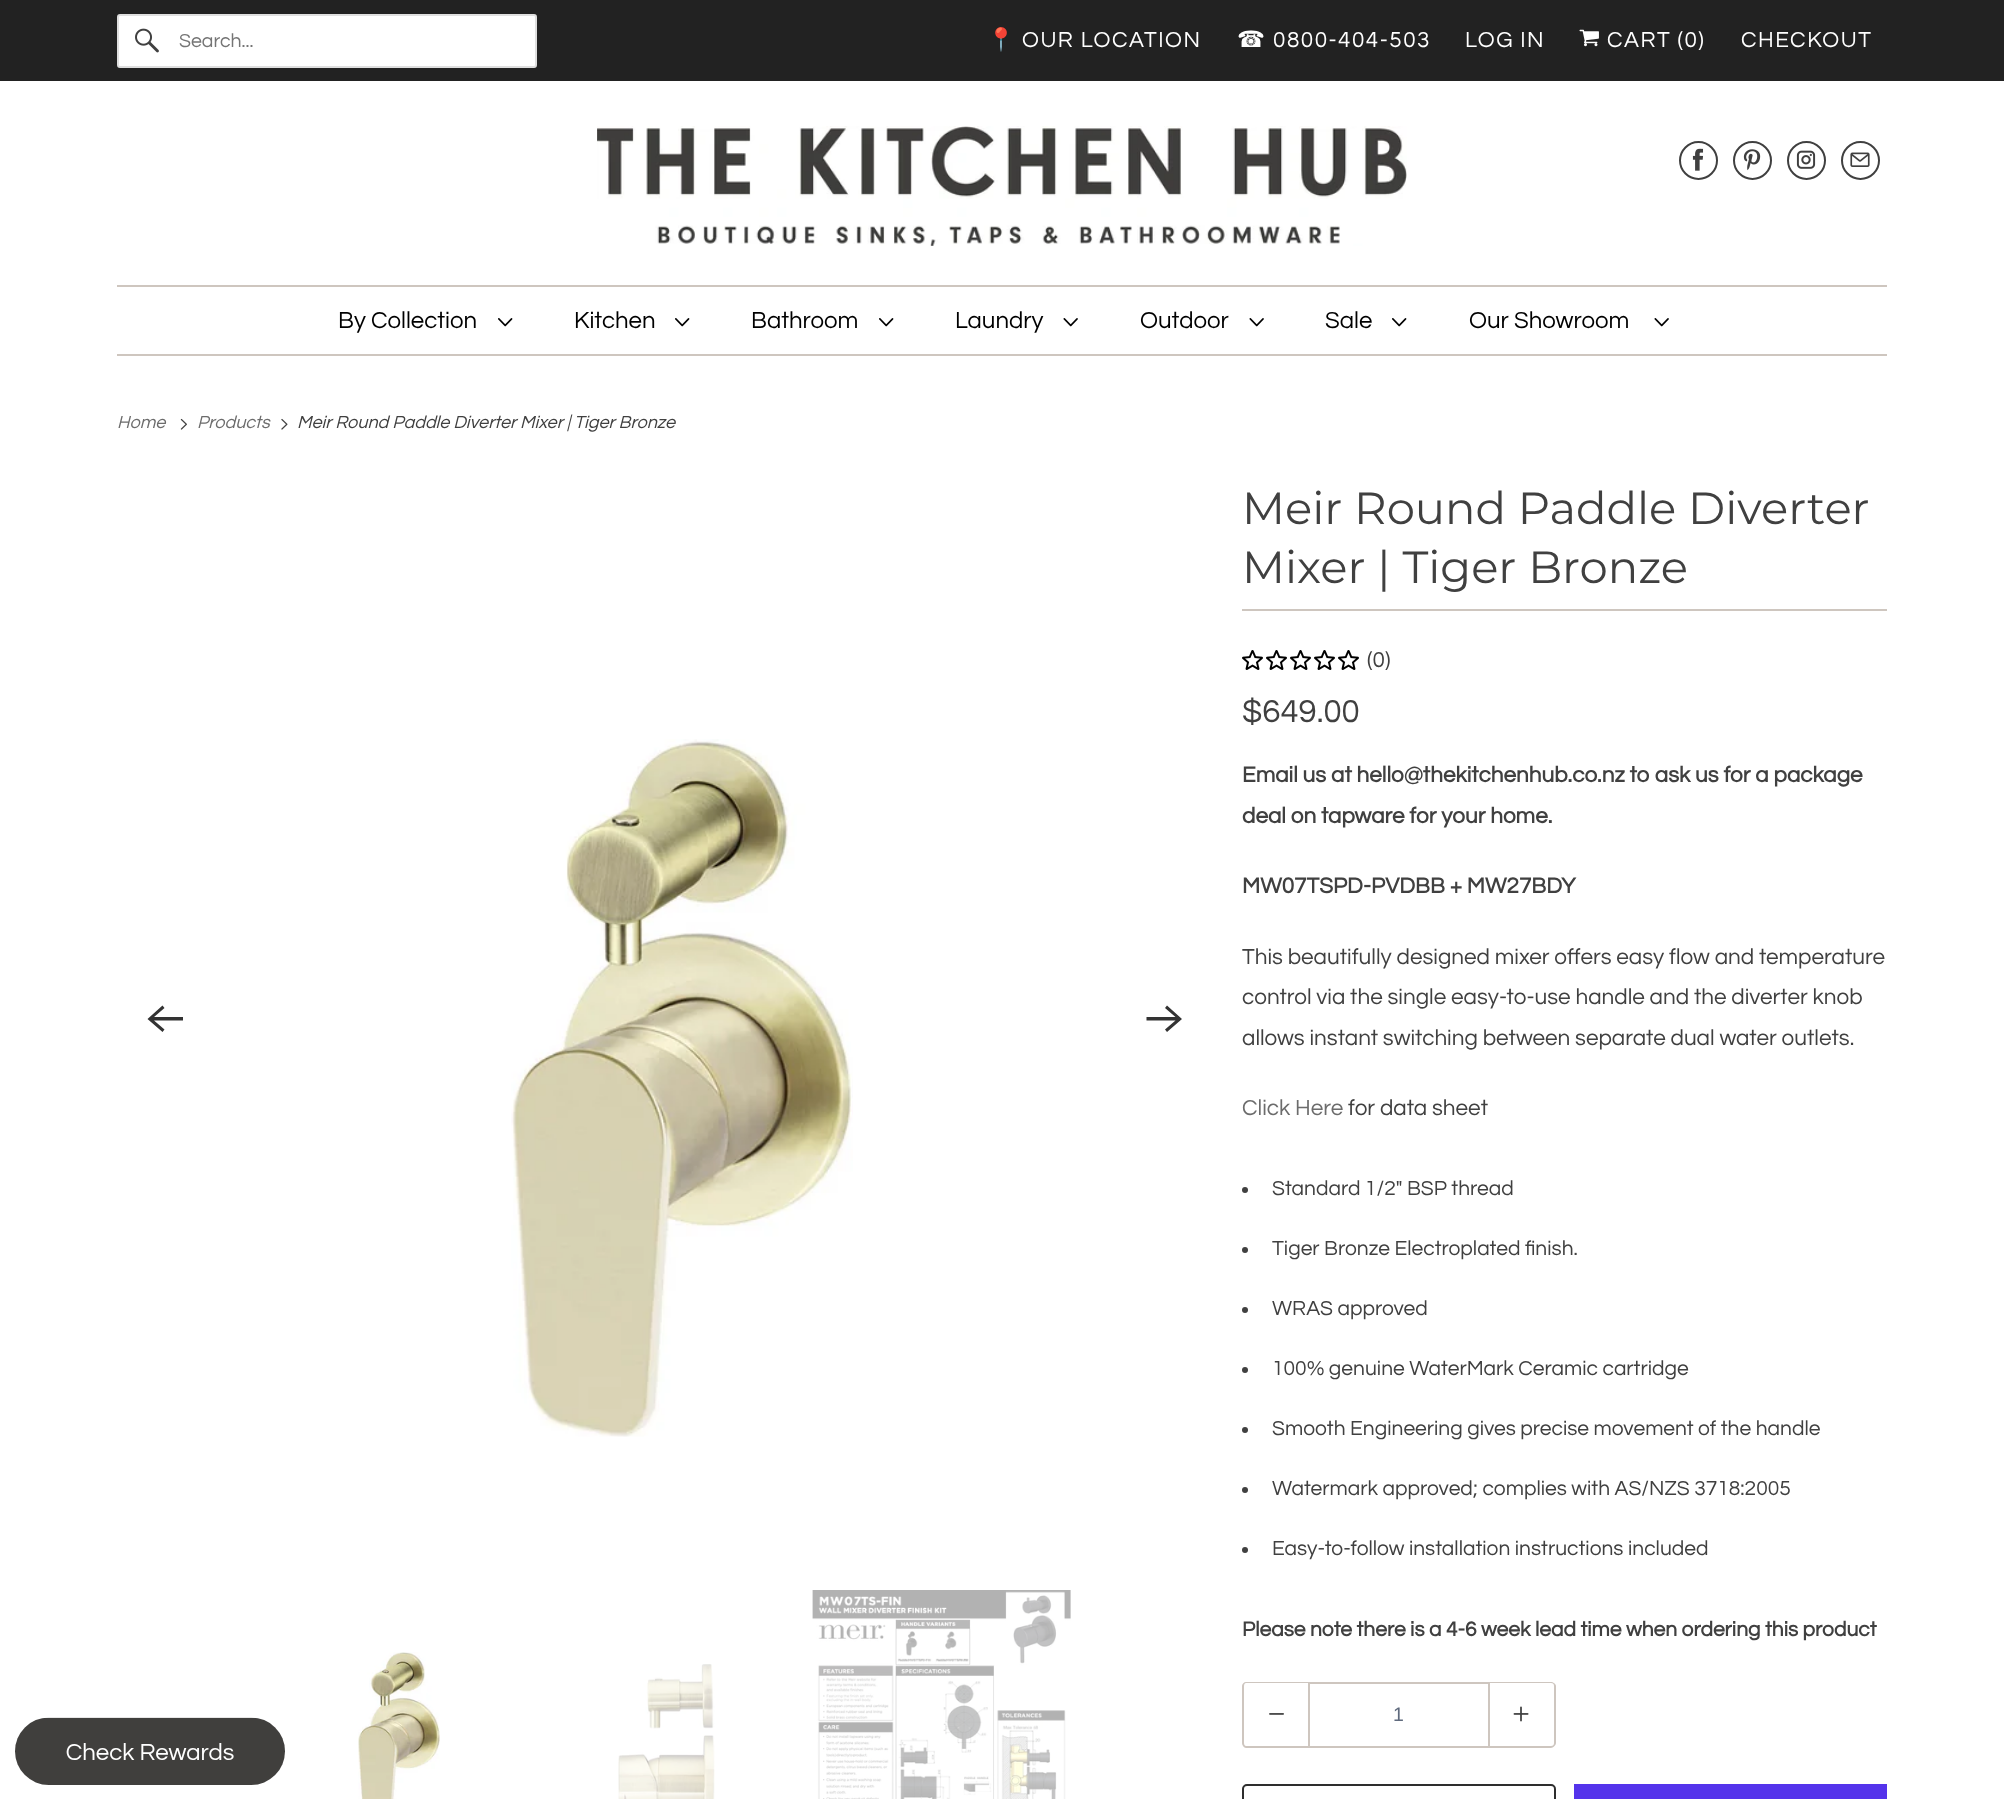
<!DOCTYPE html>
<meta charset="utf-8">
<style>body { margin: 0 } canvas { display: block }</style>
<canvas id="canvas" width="2004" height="1799"></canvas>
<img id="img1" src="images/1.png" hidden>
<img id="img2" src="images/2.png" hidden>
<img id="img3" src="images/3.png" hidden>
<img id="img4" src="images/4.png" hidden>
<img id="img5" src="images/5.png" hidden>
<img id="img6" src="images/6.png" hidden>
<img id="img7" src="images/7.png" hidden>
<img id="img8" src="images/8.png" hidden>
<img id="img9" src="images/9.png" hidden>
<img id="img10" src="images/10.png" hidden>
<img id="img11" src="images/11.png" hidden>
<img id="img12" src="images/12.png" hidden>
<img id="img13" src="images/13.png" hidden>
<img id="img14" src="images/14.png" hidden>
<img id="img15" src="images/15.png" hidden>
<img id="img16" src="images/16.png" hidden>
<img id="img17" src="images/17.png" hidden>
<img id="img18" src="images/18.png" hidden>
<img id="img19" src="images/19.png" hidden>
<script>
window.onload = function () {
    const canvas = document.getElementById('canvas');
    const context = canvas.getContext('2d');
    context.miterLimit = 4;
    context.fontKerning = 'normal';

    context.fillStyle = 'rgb(255, 255, 255)';
    context.fillRect(0, 0, 2004, 1799);
    context.fillStyle = 'rgb(34, 34, 34)';
    context.fillRect(0, 0, 2004, 81);
    context.fillStyle = 'rgb(255, 255, 255)';
    context.beginPath();
    context.roundRect(118, 15, 418, 52, 2);
    context.fill();
    context.strokeStyle = 'rgb(223, 223, 223)';
    context.lineWidth = 2;
    context.stroke();
    context.drawImage(document.getElementById('img1'), 135, 28, 24, 25);
    context.drawImage(document.getElementById('img2'), 1579, 29, 20, 18);
    context.drawImage(document.getElementById('img3'), 597, 126, 810, 120);
    context.beginPath();
    context.arc(1698.5, 160.5, 18.5, 0, 2 * Math.PI);
    context.strokeStyle = 'rgb(64, 64, 64)';
    context.stroke();
    context.drawImage(document.getElementById('img4'), 1692, 148, 12, 23);
    context.beginPath();
    context.arc(1752.5, 160.5, 18.5, 0, 2 * Math.PI);
    context.stroke();
    context.drawImage(document.getElementById('img5'), 1743, 149, 18, 22);
    context.beginPath();
    context.arc(1806.5, 160.5, 18.5, 0, 2 * Math.PI);
    context.stroke();
    context.drawImage(document.getElementById('img6'), 1796, 150, 20, 19);
    context.beginPath();
    context.arc(1860.5, 160.5, 18.5, 0, 2 * Math.PI);
    context.stroke();
    context.drawImage(document.getElementById('img7'), 1850, 152, 20, 15);
    context.fillStyle = 'rgb(206, 198, 191)';
    context.fillRect(117, 285, 1770, 2);
    context.fillRect(117, 354, 1770, 2);
    context.drawImage(document.getElementById('img8'), 498, 318, 15, 9);
    context.drawImage(document.getElementById('img8'), 675, 318, 15, 9);
    context.drawImage(document.getElementById('img8'), 879, 318, 15, 9);
    context.drawImage(document.getElementById('img9'), 1063, 318, 15, 9);
    context.drawImage(document.getElementById('img9'), 1249, 318, 15, 9);
    context.drawImage(document.getElementById('img8'), 1392, 318, 15, 9);
    context.drawImage(document.getElementById('img9'), 1654, 318, 15, 9);
    context.drawImage(document.getElementById('img10'), 180, 418, 7, 12);
    context.drawImage(document.getElementById('img11'), 281, 418, 7, 12);
    context.fillStyle = 'rgb(51, 51, 51)';
    context.beginPath();
    context.moveTo(183, 1017);
    context.lineTo(154, 1017);
    context.lineTo(164.5, 1008);
    context.lineTo(162.5, 1005.5);
    context.lineTo(147.5, 1019);
    context.lineTo(162.5, 1032);
    context.lineTo(164.5, 1029.5);
    context.lineTo(154, 1020.5);
    context.lineTo(183, 1020.5);
    context.closePath();
    context.fill();
    context.drawImage(document.getElementById('img12'), 511, 739, 342, 698);
    context.beginPath();
    context.moveTo(1146.5, 1020.5);
    context.lineTo(1175.5, 1020.5);
    context.lineTo(1165, 1029.5);
    context.lineTo(1167, 1032);
    context.lineTo(1182, 1019);
    context.lineTo(1167, 1005.5);
    context.lineTo(1165, 1008);
    context.lineTo(1175.5, 1017);
    context.lineTo(1146.5, 1017);
    context.closePath();
    context.fill();
    context.drawImage(document.getElementById('img13'), 358, 1652, 82, 147);
    context.drawImage(document.getElementById('img14'), 618, 1664, 97, 135);
    context.drawImage(document.getElementById('img15'), 812, 1590, 259, 209);
    context.fillStyle = 'rgb(206, 198, 191)';
    context.fillRect(1242, 609, 645, 2);
    context.drawImage(document.getElementById('img16'), 1242, 650, 21, 20);
    context.drawImage(document.getElementById('img16'), 1266, 650, 21, 20);
    context.drawImage(document.getElementById('img16'), 1290, 650, 21, 20);
    context.drawImage(document.getElementById('img16'), 1314, 650, 21, 20);
    context.drawImage(document.getElementById('img16'), 1338, 650, 21, 20);
    context.fillStyle = 'rgb(64, 64, 64)';
    context.beginPath();
    context.arc(1245, 1190, 3, 0, 2 * Math.PI);
    context.fill();
    context.beginPath();
    context.arc(1245, 1250, 3, 0, 2 * Math.PI);
    context.fill();
    context.beginPath();
    context.arc(1245, 1310, 3, 0, 2 * Math.PI);
    context.fill();
    context.beginPath();
    context.arc(1245, 1370, 3, 0, 2 * Math.PI);
    context.fill();
    context.beginPath();
    context.arc(1245, 1430, 3, 0, 2 * Math.PI);
    context.fill();
    context.beginPath();
    context.arc(1245, 1490, 3, 0, 2 * Math.PI);
    context.fill();
    context.beginPath();
    context.arc(1245, 1550, 3, 0, 2 * Math.PI);
    context.fill();
    context.fillStyle = 'rgb(206, 198, 191)';
    context.beginPath();
    context.moveTo(1246, 1682);
    context.lineTo(1308, 1682);
    context.lineTo(1308, 1748);
    context.lineTo(1246, 1748);
    context.bezierCurveTo(1244, 1748, 1242, 1745, 1242, 1743);
    context.lineTo(1242, 1686);
    context.bezierCurveTo(1242, 1684, 1244, 1682, 1246, 1682);
    context.closePath();
    context.moveTo(1246, 1683);
    context.lineTo(1308, 1683);
    context.lineTo(1308, 1746);
    context.lineTo(1246, 1746);
    context.bezierCurveTo(1245, 1746, 1244, 1745, 1244, 1743);
    context.lineTo(1244, 1686);
    context.bezierCurveTo(1244, 1684, 1245, 1683, 1246, 1683);
    context.closePath();
    context.fill('evenodd');
    context.drawImage(document.getElementById('img17'), 1269, 1713, 15, 2);
    context.strokeStyle = 'rgb(206, 198, 191)';
    context.strokeRect(1309, 1683, 180, 64);
    context.beginPath();
    context.moveTo(1490, 1682);
    context.lineTo(1551, 1682);
    context.bezierCurveTo(1553, 1682, 1556, 1684, 1556, 1686);
    context.lineTo(1556, 1743);
    context.bezierCurveTo(1556, 1745, 1553, 1748, 1551, 1748);
    context.lineTo(1490, 1748);
    context.closePath();
    context.moveTo(1490, 1683);
    context.lineTo(1551, 1683);
    context.bezierCurveTo(1553, 1683, 1554, 1684, 1554, 1686);
    context.lineTo(1554, 1743);
    context.bezierCurveTo(1554, 1745, 1553, 1746, 1551, 1746);
    context.lineTo(1490, 1746);
    context.closePath();
    context.fill('evenodd');
    context.drawImage(document.getElementById('img18'), 1513, 1706, 16, 16);
    context.beginPath();
    context.roundRect(1243, 1785, 312, 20, 4);
    context.strokeStyle = 'rgb(46, 46, 46)';
    context.stroke();
    context.fillStyle = 'rgb(84, 51, 235)';
    context.fillRect(1574, 1784, 313, 15);
    context.drawImage(document.getElementById('img19'), 15, 1717, 270, 68);
    context.font = '19.5px Questrial';
    context.fillStyle = 'rgb(117, 117, 117)';
    context.fillText('Search...', 179, 47);
    context.letterSpacing = '1.5px';
    context.font = '22.5px Noto Color Emoji';
    context.fillStyle = 'rgb(255, 255, 255)';
    context.fillText('📍', 987, 47);
    context.font = '22.5px Questrial';
    context.fillText('OUR LOCATION', 1022, 47);
    context.font = '22.5px DejaVu Sans';
    context.fillText('☎︎', 1237, 47);
    context.font = '22.5px Questrial';
    context.fillText('0800-404-503', 1273, 47);
    context.fillText('LOG IN', 1465, 47);
    context.fillText('CART (0)', 1607, 47);
    context.fillText('CHECKOUT', 1741, 47);
    context.letterSpacing = '0px';
    context.font = '24px Questrial';
    context.fillStyle = 'rgb(0, 0, 0)';
    context.fillText('By Collection', 338, 328);
    context.fillText('Kitchen', 574, 328);
    context.fillText('Bathroom', 751, 328);
    context.fillText('Laundry', 955, 328);
    context.fillText('Outdoor', 1140, 328);
    context.fillText('Sale', 1325, 328);
    context.fillText('Our Showroom', 1469, 328);
    context.font = 'italic 18px Questrial';
    context.fillStyle = 'rgb(108, 108, 108)';
    context.fillText('Home', 117, 428);
    context.fillText('Products', 197, 428);
    context.fillStyle = 'rgb(64, 64, 64)';
    context.fillText('Meir Round Paddle Diverter Mixer | Tiger Bronze', 297, 428);
    context.font = '45px Montserrat';
    context.fillText('Meir Round Paddle Diverter', 1242, 524);
    context.fillText('Mixer | Tiger Bronze', 1242, 583);
    context.font = '22.5px Questrial';
    context.fillText('(0)', 1367, 667);
    context.font = '33px Questrial';
    context.fillText('$649.00', 1242, 722);
    context.font = 'bold 22.5px Questrial';
    context.fillText('Email us at hello@thekitchenhub.co.nz to ask us for a package', 1242, 782);
    context.fillText('deal on tapware for your home.', 1242, 823);
    context.fillText('MW07TSPD-PVDBB + MW27BDY', 1242, 893);
    context.font = '22.5px Questrial';
    context.fillText('This beautifully designed mixer offers easy flow and temperature', 1242, 964);
    context.fillText('control via the single easy-to-use handle and the diverter knob', 1242, 1004);
    context.fillText('allows instant switching between separate dual water outlets.', 1242, 1045);
    context.fillStyle = 'rgb(108, 108, 108)';
    context.fillText('Click Here', 1242, 1115);
    context.fillStyle = 'rgb(64, 64, 64)';
    context.fillText('for data sheet', 1348, 1115);
    context.font = '21px Questrial';
    context.fillText('Standard 1/2″ BSP thread', 1272, 1195);
    context.fillText('Tiger Bronze Electroplated finish.', 1272, 1255);
    context.fillText('WRAS approved', 1272, 1315);
    context.fillText('100% genuine WaterMark Ceramic cartridge', 1272, 1375);
    context.fillText('Smooth Engineering gives precise movement of the handle', 1272, 1435);
    context.fillText('Watermark approved; complies with AS/NZS 3718:2005', 1272, 1495);
    context.fillText('Easy-to-follow installation instructions included', 1272, 1555);
    context.font = 'bold 21px Questrial';
    context.fillText('Please note there is a 4-6 week lead time when ordering this product', 1242, 1636);
    context.font = '19.5px Liberation Sans';
    context.fillStyle = 'rgb(95, 106, 125)';
    context.fillText('1', 1393, 1721);
};
</script>
